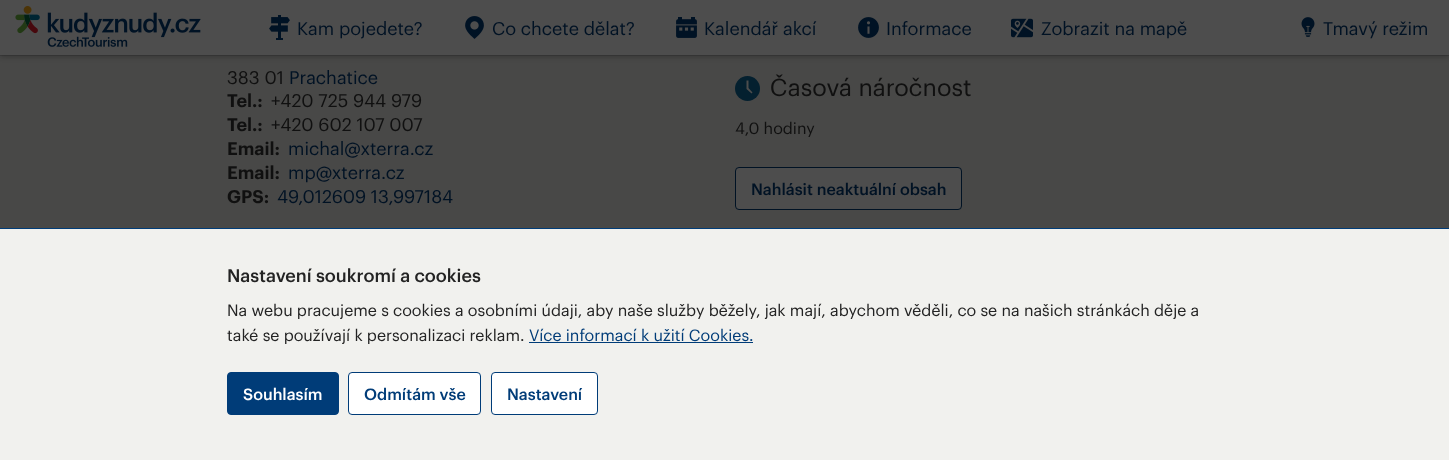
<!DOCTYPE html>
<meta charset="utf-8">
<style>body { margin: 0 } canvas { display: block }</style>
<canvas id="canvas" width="1449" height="460"></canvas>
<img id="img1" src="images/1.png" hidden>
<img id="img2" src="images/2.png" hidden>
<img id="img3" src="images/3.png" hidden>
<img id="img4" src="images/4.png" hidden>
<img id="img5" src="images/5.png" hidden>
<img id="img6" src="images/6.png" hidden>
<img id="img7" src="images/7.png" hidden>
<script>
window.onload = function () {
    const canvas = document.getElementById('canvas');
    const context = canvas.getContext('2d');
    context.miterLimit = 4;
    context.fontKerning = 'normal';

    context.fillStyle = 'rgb(72, 72, 71)';
    context.fillRect(0, 0, 1449, 460);
    context.fillStyle = 'rgb(62, 62, 62)';
    context.fillRect(0, 55, 1449, 1);
    context.fillStyle = 'rgba(15, 15, 15, 0.3)';
    context.filter = 'blur(2.5px)';
    context.beginPath();
    context.rect(0, 2, 1449, 55);
    context.fill();
    context.filter = 'none';
    context.fillStyle = 'rgb(77, 77, 77)';
    context.fillRect(0, 0, 1449, 55);
    context.drawImage(document.getElementById('img1'), 15, 6, 186, 41);
    context.drawImage(document.getElementById('img2'), 269, 15, 21, 25);
    context.drawImage(document.getElementById('img3'), 465, 16, 19, 23);
    context.drawImage(document.getElementById('img4'), 676, 17, 21, 21);
    context.drawImage(document.getElementById('img5'), 858, 17, 21, 21);
    context.drawImage(document.getElementById('img6'), 1011, 18, 22, 20);
    context.drawImage(document.getElementById('img7'), 1301, 17, 14, 20);
    context.fillStyle = 'rgb(4, 32, 47)';
    context.beginPath();
    context.arc(747.5, 88.5, 12.5, 0, 2 * Math.PI);
    context.fill();
    context.fillStyle = 'rgb(77, 77, 77)';
    context.beginPath();
    context.moveTo(748.5, 80.5);
    context.lineTo(746.5, 80.5);
    context.lineTo(746.5, 89);
    context.lineTo(751.5, 93.5);
    context.lineTo(752.5, 92.5);
    context.lineTo(748.5, 88);
    context.closePath();
    context.fill();
    context.beginPath();
    context.roundRect(735.5, 167.5, 226, 42, 3.5);
    context.fill();
    context.strokeStyle = 'rgb(0, 18, 36)';
    context.stroke();
    context.fillStyle = 'rgb(241, 241, 238)';
    context.fillRect(0, 229, 1449, 231);
    context.fillStyle = 'rgb(0, 60, 120)';
    context.fillRect(0, 228, 1449, 1);
    context.fillRect(529, 342, 224, 1);
    context.beginPath();
    context.roundRect(227.5, 372.5, 111, 42, 3.5);
    context.fill();
    context.strokeStyle = 'rgb(0, 60, 120)';
    context.stroke();
    context.fillStyle = 'rgb(255, 255, 255)';
    context.beginPath();
    context.roundRect(348.5, 372.5, 132, 42, 3.5);
    context.fill();
    context.stroke();
    context.beginPath();
    context.roundRect(491.5, 372.5, 106, 42, 3.5);
    context.fill();
    context.stroke();
    context.font = '18px Graphik';
    context.fillStyle = 'rgb(0, 18, 36)';
    context.fillText('Kam pojedete?', 297, 35);
    context.fillText('Co chcete dělat?', 492, 35);
    context.fillText('Kalendář akcí', 704, 35);
    context.fillText('Informace', 886, 35);
    context.fillText('Zobrazit na mapě', 1041, 35);
    context.fillText('Tmavý režim', 1323, 35);
    context.fillStyle = 'rgb(16, 16, 16)';
    context.fillText('383 01', 227, 84);
    context.fillStyle = 'rgb(0, 18, 36)';
    context.fillText('Prachatice', 289, 84);
    context.font = '600 18px Graphik';
    context.fillStyle = 'rgb(16, 16, 16)';
    context.fillText('Tel.:', 227, 107);
    context.font = '18px Graphik';
    context.fillText('+420 725 944 979', 271, 107);
    context.font = '600 18px Graphik';
    context.fillText('Tel.:', 227, 131);
    context.font = '18px Graphik';
    context.fillText('+420 602 107 007', 271, 131);
    context.font = '600 18px Graphik';
    context.fillText('Email:', 227, 155);
    context.font = '18px Graphik';
    context.fillStyle = 'rgb(0, 18, 36)';
    context.fillText('michal@xterra.cz', 288, 155);
    context.font = '600 18px Graphik';
    context.fillStyle = 'rgb(16, 16, 16)';
    context.fillText('Email:', 227, 179);
    context.font = '18px Graphik';
    context.fillStyle = 'rgb(0, 18, 36)';
    context.fillText('mp@xterra.cz', 288, 179);
    context.font = '600 18px Graphik';
    context.fillStyle = 'rgb(16, 16, 16)';
    context.fillText('GPS:', 227, 203);
    context.font = '18px Graphik';
    context.fillStyle = 'rgb(0, 18, 36)';
    context.fillText('49,012609 13,997184', 277, 203);
    context.font = '24px Graphik';
    context.fillStyle = 'rgb(16, 16, 16)';
    context.fillText('Časová náročnost', 770, 96);
    context.font = '16px Graphik';
    context.fillText('4,0 hodiny', 735, 134);
    context.font = '500 16px Graphik';
    context.fillStyle = 'rgb(0, 18, 36)';
    context.fillText('Nahlásit neaktuální obsah', 751, 195);
    context.font = '500 18px Graphik';
    context.fillStyle = 'rgb(35, 35, 35)';
    context.fillText('Nastavení soukromí a cookies', 227, 282);
    context.font = '16px Graphik';
    context.fillText('Na webu pracujeme s cookies a osobními údaji, aby naše služby běžely, jak mají, abychom věděli, co se na našich stránkách děje a', 227, 316);
    context.fillText('také se používají k personalizaci reklam.', 227, 341);
    context.fillStyle = 'rgb(0, 60, 120)';
    context.fillText('Více informací k užití Cookies.', 529, 341);
    context.font = '500 16px Graphik';
    context.fillStyle = 'rgb(255, 255, 255)';
    context.fillText('Souhlasím', 243, 400);
    context.fillStyle = 'rgb(0, 60, 120)';
    context.fillText('Odmítám vše', 364, 400);
    context.fillText('Nastavení', 507, 400);
};
</script>
